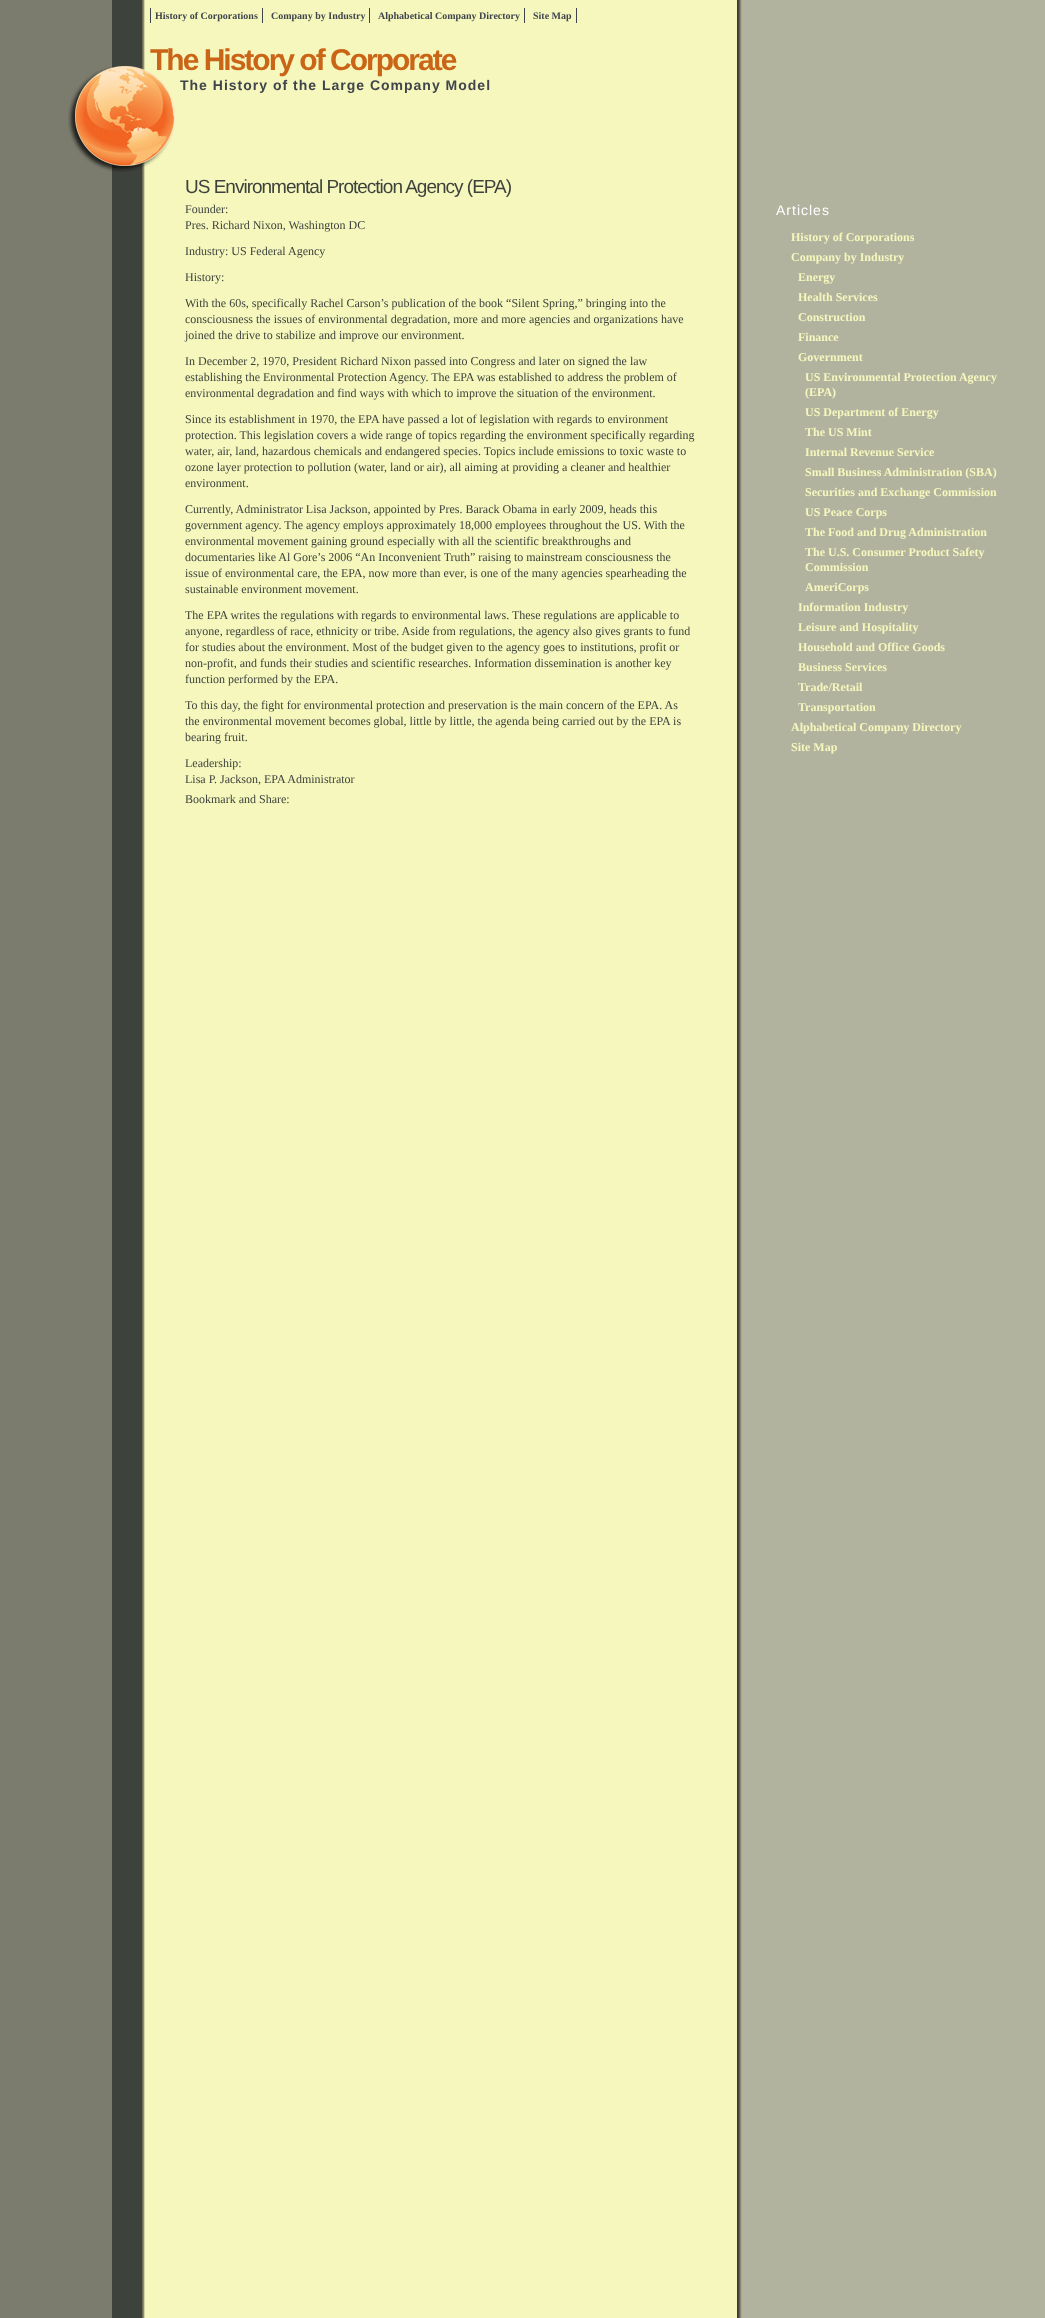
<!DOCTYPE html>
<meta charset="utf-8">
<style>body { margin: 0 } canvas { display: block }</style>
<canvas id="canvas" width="1045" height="2318"></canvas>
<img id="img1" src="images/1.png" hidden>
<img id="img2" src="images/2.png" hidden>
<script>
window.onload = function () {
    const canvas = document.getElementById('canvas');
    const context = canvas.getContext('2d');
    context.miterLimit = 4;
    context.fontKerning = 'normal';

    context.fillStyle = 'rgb(178, 179, 159)';
    context.fillRect(0, 0, 1045, 2318);
    context.drawImage(document.getElementById('img1'), 0, 0, 742, 2318);
    context.drawImage(document.getElementById('img2'), 68, 66, 107, 106);
    context.fillStyle = 'rgb(64, 69, 75)';
    context.fillRect(150, 8, 1, 15);
    context.fillRect(262, 8, 1, 15);
    context.fillRect(369, 8, 1, 15);
    context.fillRect(524, 8, 1, 15);
    context.fillRect(576, 8, 1, 15);
    context.font = 'bold 10px Liberation Serif';
    context.fillText('History of Corporations', 155, 19);
    context.fillText('Company by Industry', 271, 19);
    context.fillText('Alphabetical Company Directory', 378, 19);
    context.fillText('Site Map', 533, 19);
    context.letterSpacing = '-2px';
    context.font = 'bold 30px Liberation Sans';
    context.fillStyle = 'rgb(202, 101, 23)';
    context.fillText('The History of Corporate', 150, 70);
    context.letterSpacing = '1px';
    context.font = 'bold 14px Liberation Sans';
    context.fillStyle = 'rgb(64, 69, 75)';
    context.fillText('The History of the Large Company Model', 180, 90);
    context.letterSpacing = '-1px';
    context.font = '19px Liberation Sans';
    context.fillStyle = 'rgb(61, 66, 60)';
    context.fillText('US Environmental Protection Agency (EPA)', 185, 193);
    context.letterSpacing = '0px';
    context.font = '12px Liberation Serif';
    context.fillText('Founder:', 185, 213);
    context.fillText('Pres. Richard Nixon, Washington DC', 185, 229);
    context.fillText('Industry: US Federal Agency', 185, 255);
    context.fillText('History:', 185, 281);
    context.fillText('With the 60s, specifically Rachel Carson’s publication of the book “Silent Spring,” bringing into the', 185, 307);
    context.fillText('consciousness the issues of environmental degradation, more and more agencies and organizations have', 185, 323);
    context.fillText('joined the drive to stabilize and improve our environment.', 185, 339);
    context.fillText('In December 2, 1970, President Richard Nixon passed into Congress and later on signed the law', 185, 365);
    context.fillText('establishing the Environmental Protection Agency. The EPA was established to address the problem of', 185, 381);
    context.fillText('environmental degradation and find ways with which to improve the situation of the environment.', 185, 397);
    context.fillText('Since its establishment in 1970, the EPA have passed a lot of legislation with regards to environment', 185, 423);
    context.fillText('protection. This legislation covers a wide range of topics regarding the environment specifically regarding', 185, 439);
    context.fillText('water, air, land, hazardous chemicals and endangered species. Topics include emissions to toxic waste to', 185, 455);
    context.fillText('ozone layer protection to pollution (water, land or air), all aiming at providing a cleaner and healthier', 185, 471);
    context.fillText('environment.', 185, 487);
    context.fillText('Currently, Administrator Lisa Jackson, appointed by Pres. Barack Obama in early 2009, heads this', 185, 513);
    context.fillText('government agency. The agency employs approximately 18,000 employees throughout the US. With the', 185, 529);
    context.fillText('environmental movement gaining ground especially with all the scientific breakthroughs and', 185, 545);
    context.fillText('documentaries like Al Gore’s 2006 “An Inconvenient Truth” raising to mainstream consciousness the', 185, 561);
    context.fillText('issue of environmental care, the EPA, now more than ever, is one of the many agencies spearheading the', 185, 577);
    context.fillText('sustainable environment movement.', 185, 593);
    context.fillText('The EPA writes the regulations with regards to environmental laws. These regulations are applicable to', 185, 619);
    context.fillText('anyone, regardless of race, ethnicity or tribe. Aside from regulations, the agency also gives grants to fund', 185, 635);
    context.fillText('for studies about the environment. Most of the budget given to the agency goes to institutions, profit or', 185, 651);
    context.fillText('non-profit, and funds their studies and scientific researches. Information dissemination is another key', 185, 667);
    context.fillText('function performed by the EPA.', 185, 683);
    context.fillText('To this day, the fight for environmental protection and preservation is the main concern of the EPA. As', 185, 709);
    context.fillText('the environmental movement becomes global, little by little, the agenda being carried out by the EPA is', 185, 725);
    context.fillText('bearing fruit.', 185, 741);
    context.fillText('Leadership:', 185, 767);
    context.fillText('Lisa P. Jackson, EPA Administrator', 185, 783);
    context.fillText('Bookmark and Share:', 185, 803);
    context.letterSpacing = '1px';
    context.font = '14px Liberation Sans';
    context.fillStyle = 'rgb(255, 255, 255)';
    context.fillText('Articles', 776, 215);
    context.letterSpacing = '0px';
    context.font = 'bold 12px Liberation Serif';
    context.fillStyle = 'rgb(245, 247, 189)';
    context.fillText('History of Corporations', 791, 241);
    context.fillText('Company by Industry', 791, 261);
    context.fillText('Energy', 798, 281);
    context.fillText('Health Services', 798, 301);
    context.fillText('Construction', 798, 321);
    context.fillText('Finance', 798, 341);
    context.fillText('Government', 798, 361);
    context.fillText('US Environmental Protection Agency', 805, 381);
    context.fillText('(EPA)', 805, 396);
    context.fillText('US Department of Energy', 805, 416);
    context.fillText('The US Mint', 805, 436);
    context.fillText('Internal Revenue Service', 805, 456);
    context.fillText('Small Business Administration (SBA)', 805, 476);
    context.fillText('Securities and Exchange Commission', 805, 496);
    context.fillText('US Peace Corps', 805, 516);
    context.fillText('The Food and Drug Administration', 805, 536);
    context.fillText('The U.S. Consumer Product Safety', 805, 556);
    context.fillText('Commission', 805, 571);
    context.fillText('AmeriCorps', 805, 591);
    context.fillText('Information Industry', 798, 611);
    context.fillText('Leisure and Hospitality', 798, 631);
    context.fillText('Household and Office Goods', 798, 651);
    context.fillText('Business Services', 798, 671);
    context.fillText('Trade/Retail', 798, 691);
    context.fillText('Transportation', 798, 711);
    context.fillText('Alphabetical Company Directory', 791, 731);
    context.fillText('Site Map', 791, 751);
};
</script>
